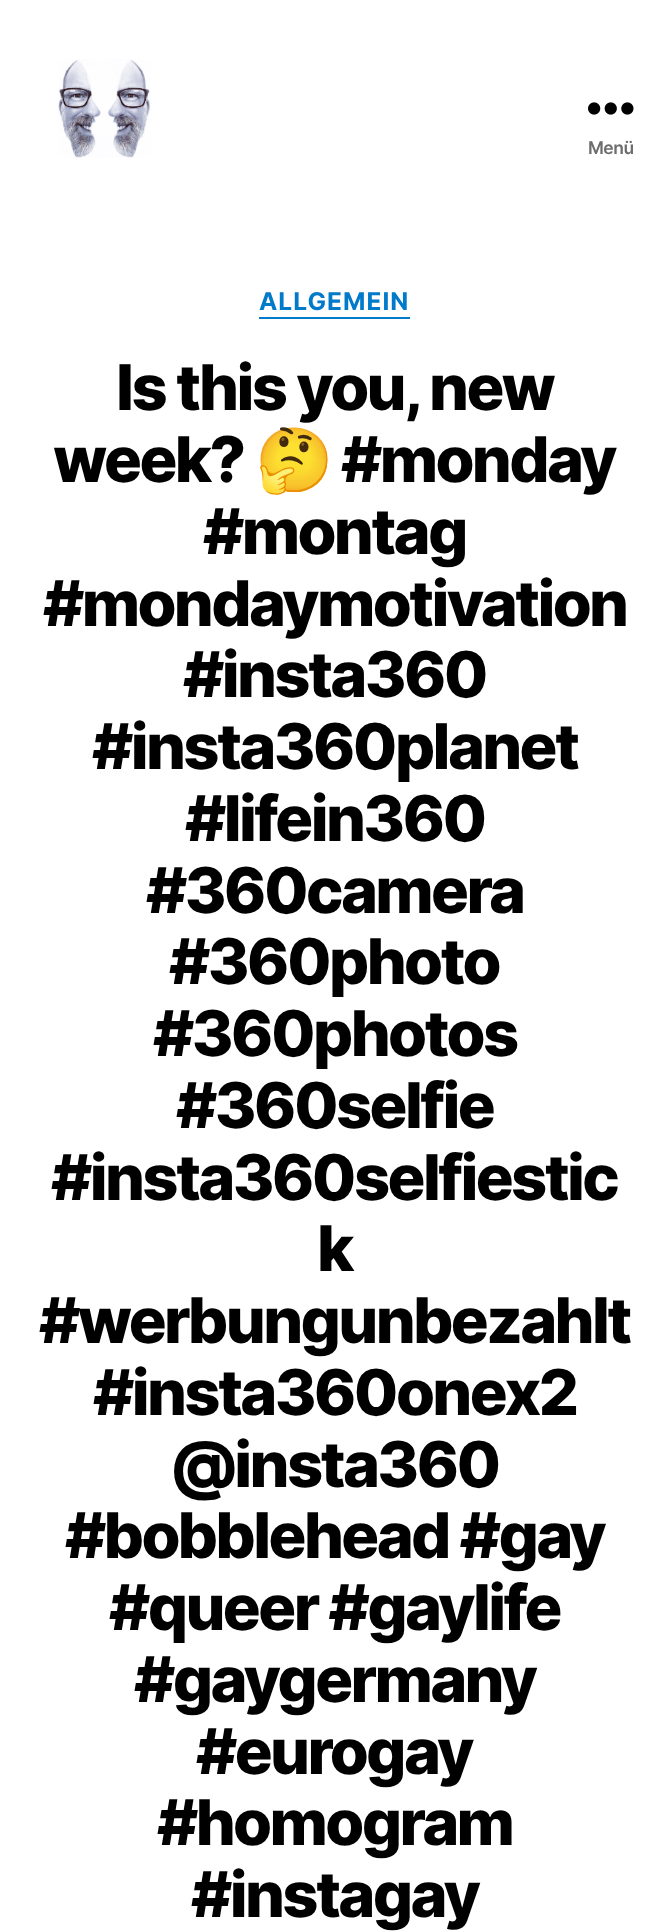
<!DOCTYPE html>
<meta charset="utf-8">
<style>body { margin: 0 } canvas { display: block }</style>
<canvas id="canvas" width="668" height="1931"></canvas>
<img id="img1" src="images/1.png" hidden>
<img id="img2" src="images/2.png" hidden>
<script>
window.onload = function () {
    const canvas = document.getElementById('canvas');
    const context = canvas.getContext('2d');
    context.miterLimit = 4;
    context.fontKerning = 'normal';

    context.fillStyle = 'rgb(255, 255, 255)';
    context.fillRect(0, 0, 668, 1931);
    context.drawImage(document.getElementById('img1'), 58, 59, 93, 99);
    context.drawImage(document.getElementById('img2'), 588, 102, 46, 13);
    context.fillStyle = 'rgb(1, 122, 202)';
    context.fillRect(259, 317, 151, 2);
    context.letterSpacing = '-0.5px';
    context.font = '600 17.5px Inter';
    context.fillStyle = 'rgb(109, 109, 109)';
    context.fillText('Menü', 588, 154);
    context.letterSpacing = '1px';
    context.font = 'bold 24.5px Inter';
    context.fillStyle = 'rgb(1, 122, 202)';
    context.fillText('ALLGEMEIN', 259, 310);
    context.letterSpacing = '-2.6px';
    context.font = '800 63px Inter';
    context.fillStyle = 'rgb(0, 0, 0)';
    context.fillText('Is this you, new', 116, 410);
    context.fillText('week?', 53, 482);
    context.font = 'bold 63px Noto Color Emoji';
    context.fillText('🤔', 255, 482);
    context.font = '800 63px Inter';
    context.fillText('#monday', 341, 482);
    context.fillText('#montag', 203, 554);
    context.fillText('#mondaymotivation', 43, 626);
    context.fillText('#insta360', 183, 697);
    context.fillText('#insta360planet', 92, 769);
    context.fillText('#lifein360', 185, 841);
    context.fillText('#360camera', 146, 913);
    context.fillText('#360photo', 169, 984);
    context.fillText('#360photos', 153, 1056);
    context.fillText('#360selfie', 176, 1128);
    context.fillText('#insta360selfiestic', 51, 1200);
    context.fillText('k', 317, 1271);
    context.fillText('#werbungunbezahlt', 39, 1343);
    context.fillText('#insta360onex2', 93, 1415);
    context.fillText('@insta360', 170, 1487);
    context.fillText('#bobblehead #gay', 65, 1558);
    context.fillText('#queer #gaylife', 109, 1630);
    context.fillText('#gaygermany', 134, 1702);
    context.fillText('#eurogay', 196, 1774);
    context.fillText('#homogram', 157, 1845);
    context.fillText('#instagay', 191, 1917);
};
</script>
